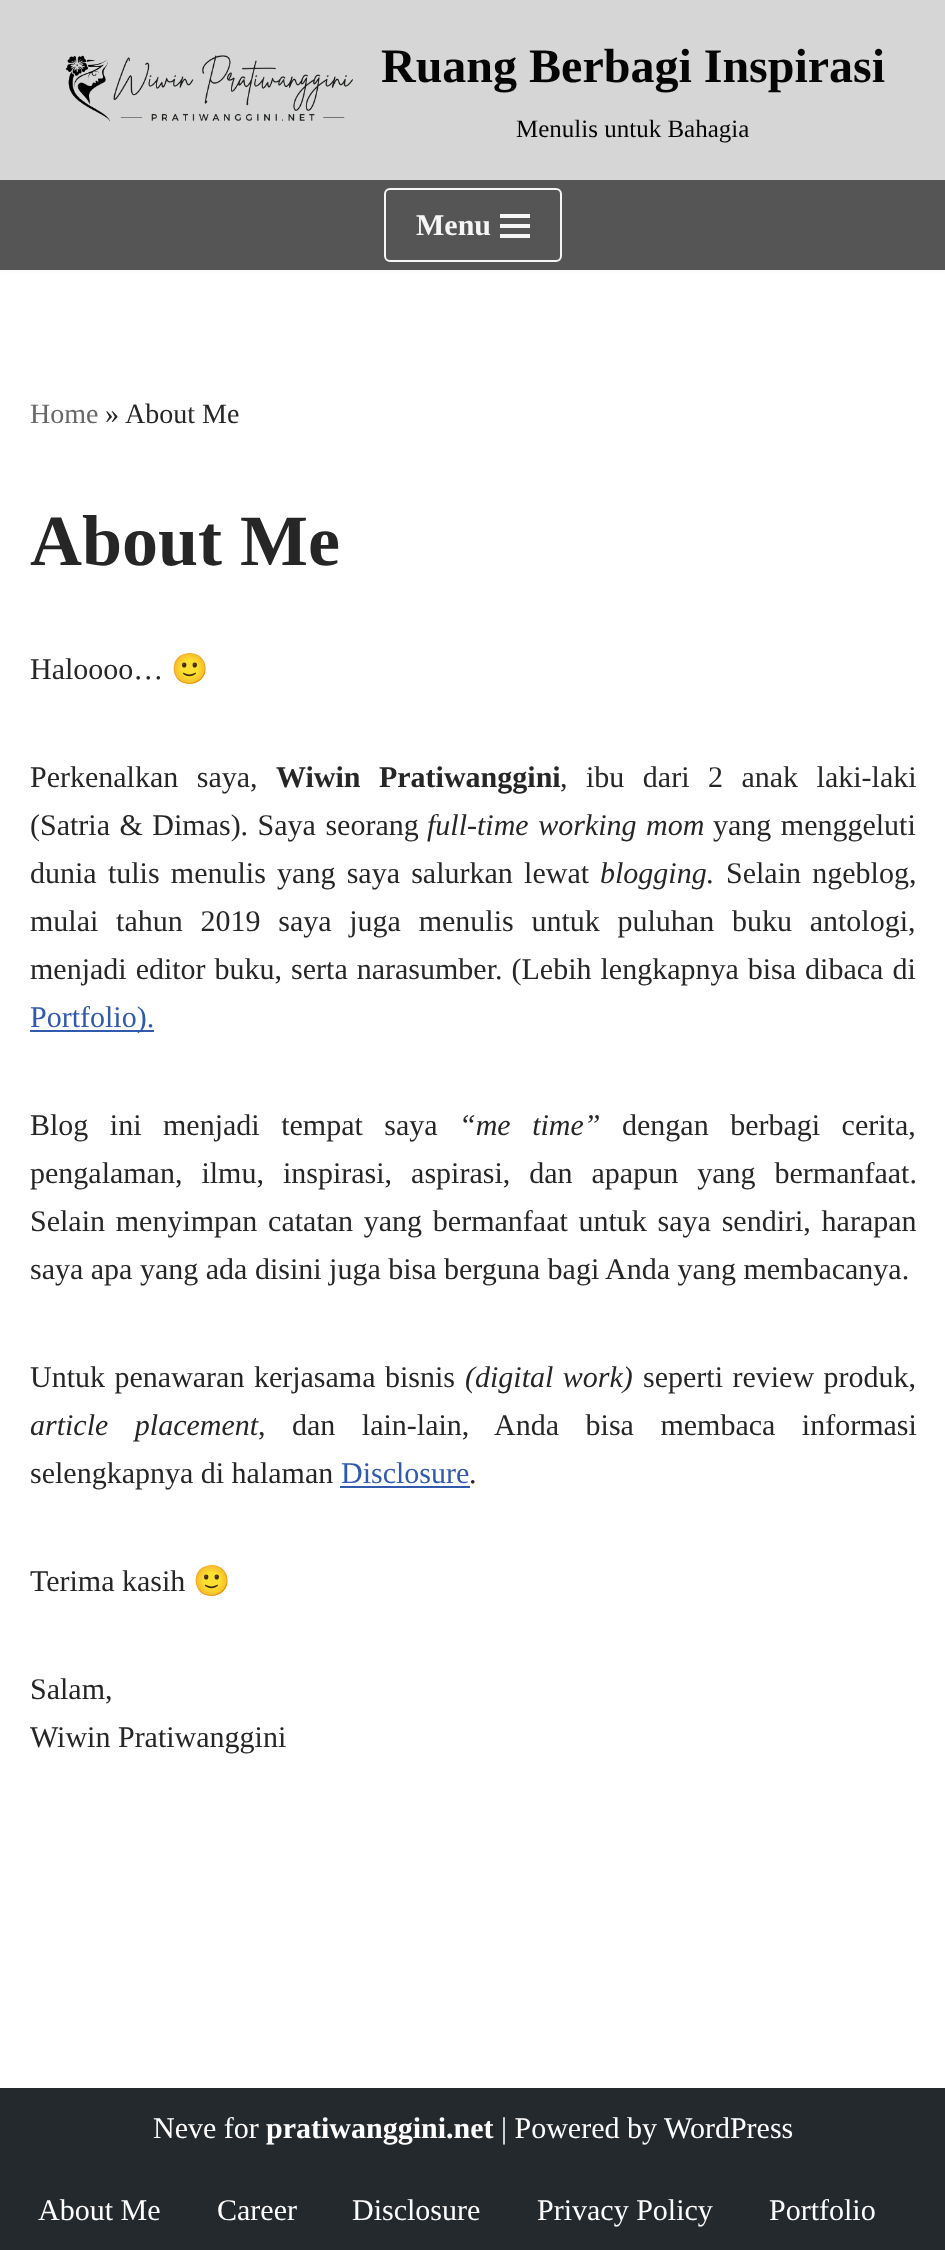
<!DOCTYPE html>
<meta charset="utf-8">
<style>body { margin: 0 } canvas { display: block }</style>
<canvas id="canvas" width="945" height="2250"></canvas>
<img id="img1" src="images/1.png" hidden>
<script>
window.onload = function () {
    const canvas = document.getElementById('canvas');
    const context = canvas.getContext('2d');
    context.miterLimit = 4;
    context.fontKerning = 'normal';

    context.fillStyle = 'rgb(255, 255, 255)';
    context.fillRect(0, 0, 945, 2250);
    context.fillStyle = 'rgba(0, 0, 0, 0.1)';
    context.filter = 'blur(3px)';
    context.beginPath();
    context.rect(0, -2, 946, 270);
    context.fill();
    context.filter = 'none';
    context.fillStyle = 'rgb(214, 214, 214)';
    context.fillRect(0, 0, 945, 180);
    context.drawImage(document.getElementById('img1'), 65, 55, 288, 67);
    context.fillStyle = 'rgb(85, 85, 85)';
    context.fillRect(0, 180, 945, 90);
    context.beginPath();
    context.roundRect(385, 189, 176, 72, 5);
    context.strokeStyle = 'rgb(246, 246, 246)';
    context.lineWidth = 2;
    context.stroke();
    context.fillStyle = 'rgb(246, 246, 246)';
    context.fillRect(500, 214, 30, 4);
    context.fillRect(500, 224, 30, 4);
    context.fillRect(500, 234, 30, 4);
    context.fillStyle = 'rgb(47, 90, 174)';
    context.fillRect(30, 1030, 124, 2);
    context.fillRect(340, 1486, 130, 2);
    context.fillStyle = 'rgb(36, 41, 46)';
    context.fillRect(0, 2088, 945, 162);
    context.font = 'bold 48px Liberation Serif';
    context.fillStyle = 'rgb(5, 5, 5)';
    context.fillText('Ruang Berbagi Inspirasi', 381, 82);
    context.font = '25px Liberation Serif';
    context.fillText('Menulis untuk Bahagia', 516, 137);
    context.font = 'bold 30px Liberation Serif';
    context.fillStyle = 'rgb(246, 246, 246)';
    context.fillText('Menu', 416, 235);
    context.font = '28px Liberation Serif';
    context.fillStyle = 'rgb(103, 103, 103)';
    context.fillText('Home', 30, 423);
    context.fillStyle = 'rgb(39, 38, 38)';
    context.fillText('»', 105, 423);
    context.fillText('About Me', 125, 423);
    context.font = 'bold 72px Liberation Serif';
    context.fillText('About Me', 30, 565);
    context.font = '30px Liberation Serif';
    context.fillText('Haloooo…', 30, 679);
    context.font = '30px Noto Color Emoji';
    context.fillText('🙂', 171, 679);
    context.wordSpacing = '11px';
    context.font = '30px Liberation Serif';
    context.fillText('Perkenalkan saya,', 30, 787);
    context.font = 'bold 30px Liberation Serif';
    context.fillText('Wiwin Pratiwanggini', 276, 787);
    context.font = '30px Liberation Serif';
    context.fillText(', ibu dari 2 anak laki-laki', 560, 787);
    context.wordSpacing = '2px';
    context.fillText('(Satria & Dimas). Saya seorang', 30, 835);
    context.font = 'italic 30px Liberation Serif';
    context.fillText('full-time working mom', 427, 835);
    context.font = '30px Liberation Serif';
    context.fillText('yang menggeluti', 713, 835);
    context.wordSpacing = '3.75px';
    context.fillText('dunia tulis menulis yang saya salurkan lewat', 30, 883);
    context.wordSpacing = '0px';
    context.font = 'italic 30px Liberation Serif';
    context.fillText('blogging.', 600, 883);
    context.wordSpacing = '3.75px';
    context.font = '30px Liberation Serif';
    context.fillText('Selain ngeblog,', 726, 883);
    context.wordSpacing = '10.25px';
    context.fillText('mulai tahun 2019 saya juga menulis untuk puluhan buku antologi,', 30, 931);
    context.wordSpacing = '1.5px';
    context.fillText('menjadi editor buku, serta narasumber. (Lebih lengkapnya bisa dibaca di', 30, 979);
    context.wordSpacing = '0px';
    context.fillStyle = 'rgb(47, 90, 174)';
    context.fillText('Portfolio).', 30, 1027);
    context.wordSpacing = '14px';
    context.fillStyle = 'rgb(39, 38, 38)';
    context.fillText('Blog ini menjadi tempat saya', 30, 1135);
    context.font = 'italic 30px Liberation Serif';
    context.fillText('“me time”', 459, 1135);
    context.font = '30px Liberation Serif';
    context.fillText('dengan berbagi cerita,', 622, 1135);
    context.wordSpacing = '11.5px';
    context.fillText('pengalaman, ilmu, inspirasi, aspirasi, dan apapun yang bermanfaat.', 30, 1183);
    context.wordSpacing = '3.25px';
    context.fillText('Selain menyimpan catatan yang bermanfaat untuk saya sendiri, harapan', 30, 1231);
    context.wordSpacing = '0px';
    context.fillText('saya apa yang ada disini juga bisa berguna bagi Anda yang membacanya.', 30, 1279);
    context.wordSpacing = '2px';
    context.fillText('Untuk penawaran kerjasama bisnis', 30, 1387);
    context.font = 'italic 30px Liberation Serif';
    context.fillText('(digital work)', 465, 1387);
    context.font = '30px Liberation Serif';
    context.fillText('seperti review produk,', 643, 1387);
    context.wordSpacing = '19px';
    context.font = 'italic 30px Liberation Serif';
    context.fillText('article placement', 30, 1435);
    context.font = '30px Liberation Serif';
    context.fillText(', dan lain-lain, Anda bisa membaca informasi', 258, 1435);
    context.wordSpacing = '0px';
    context.fillText('selengkapnya di halaman', 30, 1483);
    context.fillStyle = 'rgb(47, 90, 174)';
    context.fillText('Disclosure', 341, 1483);
    context.fillStyle = 'rgb(39, 38, 38)';
    context.fillText('.', 469, 1483);
    context.fillText('Terima kasih', 30, 1591);
    context.font = '30px Noto Color Emoji';
    context.fillText('🙂', 193, 1591);
    context.font = '30px Liberation Serif';
    context.fillText('Salam,', 30, 1699);
    context.fillText('Wiwin Pratiwanggini', 30, 1747);
    context.fillStyle = 'rgb(255, 255, 255)';
    context.fillText('Neve for', 153, 2138);
    context.font = 'bold 30px Liberation Serif';
    context.fillText('pratiwanggini.net', 266, 2138);
    context.font = '30px Liberation Serif';
    context.fillText('| Powered by', 501, 2138);
    context.fillText('WordPress', 664, 2138);
    context.fillText('About Me', 38, 2220);
    context.fillText('Career', 217, 2220);
    context.fillText('Disclosure', 352, 2220);
    context.fillText('Privacy Policy', 537, 2220);
    context.fillText('Portfolio', 769, 2220);
};
</script>
